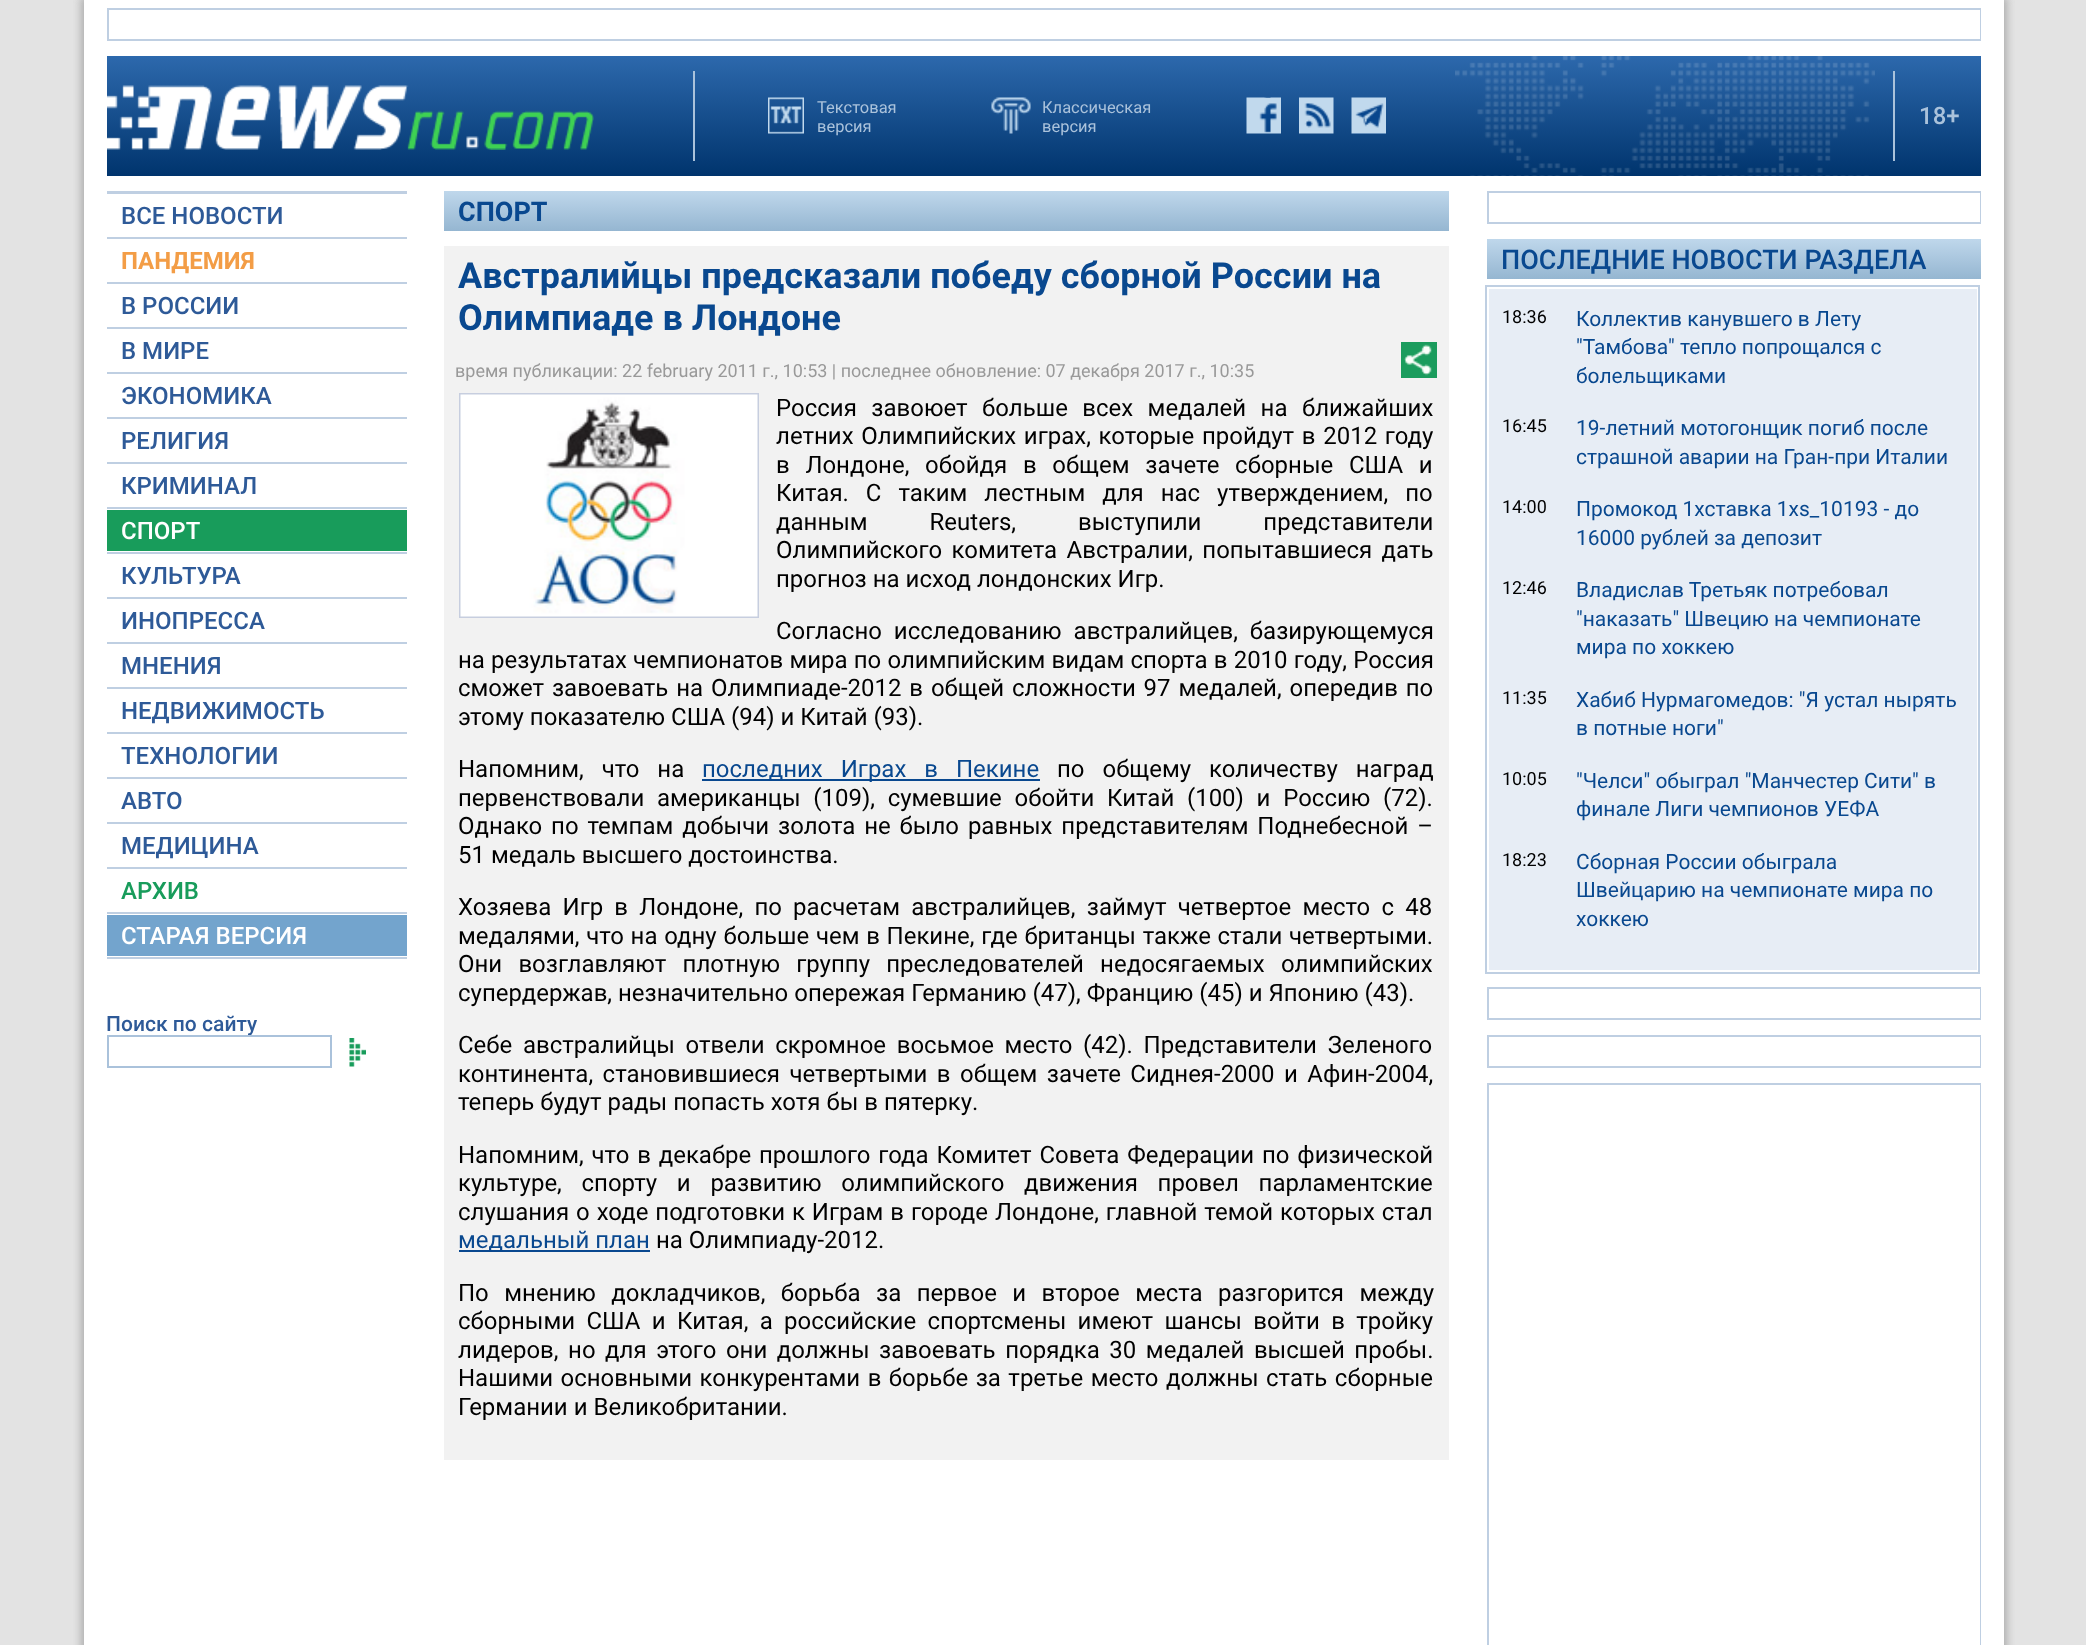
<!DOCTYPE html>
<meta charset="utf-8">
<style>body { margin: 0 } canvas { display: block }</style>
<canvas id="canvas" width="2086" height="1645"></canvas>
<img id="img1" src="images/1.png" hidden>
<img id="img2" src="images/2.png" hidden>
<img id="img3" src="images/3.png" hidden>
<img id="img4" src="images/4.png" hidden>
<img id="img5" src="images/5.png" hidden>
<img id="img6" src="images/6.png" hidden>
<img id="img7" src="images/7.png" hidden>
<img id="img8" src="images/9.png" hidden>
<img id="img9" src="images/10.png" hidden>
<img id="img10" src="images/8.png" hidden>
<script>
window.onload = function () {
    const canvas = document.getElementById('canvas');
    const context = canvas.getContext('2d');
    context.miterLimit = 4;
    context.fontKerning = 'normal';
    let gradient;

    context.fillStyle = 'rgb(227, 227, 227)';
    context.fillRect(0, 0, 2086, 1645);
    context.fillStyle = 'rgb(255, 255, 255)';
    context.fillRect(107, 1, 1874, 1644);
    context.save();
    context.beginPath();
    context.rect(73, 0, 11, 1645);
    context.clip();
    context.fillStyle = 'rgb(173, 173, 173)';
    context.filter = 'blur(4px)';
    context.beginPath();
    context.rect(81, -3, 1881, 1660);
    context.fill();
    context.filter = 'none';
    context.restore();
    context.save();
    context.beginPath();
    context.rect(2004, 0, 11, 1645);
    context.clip();
    context.fillStyle = 'rgb(173, 173, 173)';
    context.filter = 'blur(4px)';
    context.beginPath();
    context.rect(126, -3, 1881, 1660);
    context.fill();
    context.filter = 'none';
    context.restore();
    context.strokeStyle = 'rgb(191, 207, 226)';
    context.lineWidth = 2;
    context.strokeRect(108, 9, 1873, 31);
    gradient = context.createLinearGradient(1044, 55, 1044, 176);
    gradient.addColorStop(0, 'rgb(45, 105, 173)');
    gradient.addColorStop(1, 'rgb(0, 52, 109)');
    context.fillStyle = gradient;
    context.fillRect(107, 56, 1874, 120);
    context.drawImage(document.getElementById('img1'), 107, 85, 487, 65);
    context.fillStyle = 'rgb(170, 194, 219)';
    context.fillRect(693, 71, 2, 90);
    context.drawImage(document.getElementById('img2'), 768, 97, 36, 37);
    context.drawImage(document.getElementById('img3'), 991, 97, 40, 37);
    context.drawImage(document.getElementById('img4'), 1246, 97, 35, 37);
    context.drawImage(document.getElementById('img5'), 1299, 97, 35, 37);
    context.fillStyle = 'rgb(8, 70, 141)';
    context.fillRect(1352, 103, 34, 31);
    context.drawImage(document.getElementById('img6'), 1351, 97, 35, 37);
    context.drawImage(document.getElementById('img7'), 1455, 56, 420, 120);
    context.fillStyle = 'rgb(170, 194, 219)';
    context.fillRect(1893, 71, 2, 90);
    context.fillStyle = 'rgb(191, 207, 226)';
    context.fillRect(107, 191, 300, 3);
    context.fillRect(107, 237, 300, 2);
    context.fillRect(107, 282, 300, 2);
    context.fillRect(107, 327, 300, 2);
    context.fillRect(107, 372, 300, 2);
    context.fillRect(107, 417, 300, 2);
    context.fillRect(107, 462, 300, 2);
    context.fillRect(107, 507, 300, 2);
    context.fillRect(107, 552, 300, 2);
    context.fillStyle = 'rgb(24, 156, 91)';
    context.fillRect(107, 510, 300, 41);
    context.fillStyle = 'rgb(191, 207, 226)';
    context.fillRect(107, 597, 300, 2);
    context.fillRect(107, 642, 300, 2);
    context.fillRect(107, 687, 300, 2);
    context.fillRect(107, 732, 300, 2);
    context.fillRect(107, 777, 300, 2);
    context.fillRect(107, 822, 300, 2);
    context.fillRect(107, 867, 300, 2);
    context.fillRect(107, 912, 300, 2);
    context.fillRect(107, 957, 300, 2);
    context.fillStyle = 'rgb(115, 164, 205)';
    context.fillRect(107, 915, 300, 41);
    gradient = context.createLinearGradient(947, 190, 947, 231);
    gradient.addColorStop(0, 'rgb(192, 216, 236)');
    gradient.addColorStop(1, 'rgb(149, 182, 209)');
    context.fillStyle = gradient;
    context.fillRect(444, 191, 1005, 40);
    context.fillStyle = 'rgb(242, 242, 242)';
    context.fillRect(444, 246, 1005, 1214);
    context.drawImage(document.getElementById('img8'), 1401, 342, 36, 36);
    context.strokeStyle = 'rgb(199, 206, 223)';
    context.strokeRect(460, 394, 298, 223);
    context.drawImage(document.getElementById('img9'), 460, 394, 298, 223);
    context.fillStyle = 'rgb(9, 72, 143)';
    context.fillRect(702, 779, 338, 2);
    context.fillRect(459, 1250, 191, 2);
    context.strokeStyle = 'rgb(191, 207, 226)';
    context.strokeRect(1488, 192, 493, 31);
    gradient = context.createLinearGradient(1734, 238, 1734, 279);
    gradient.addColorStop(0, 'rgb(192, 216, 236)');
    gradient.addColorStop(1, 'rgb(149, 182, 209)');
    context.fillStyle = gradient;
    context.fillRect(1487, 239, 494, 40);
    context.fillStyle = 'rgb(231, 237, 245)';
    context.fillRect(1489, 289, 488, 681);
    context.strokeRect(1486, 286, 493, 687);
    context.strokeRect(1488, 988, 493, 31);
    context.strokeRect(1488, 1036, 493, 31);
    context.strokeRect(1488, 1084, 493, 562);
    context.font = '16.5px Roboto';
    context.fillStyle = 'rgb(170, 194, 219)';
    context.fillText('Текстовая', 817, 113);
    context.fillText('версия', 817, 132);
    context.fillText('Классическая', 1042, 113);
    context.fillText('версия', 1042, 132);
    context.font = '500 24px Roboto';
    context.fillText('18+', 1919, 124);
    context.fillStyle = 'rgb(46, 90, 152)';
    context.fillText('ВСЕ НОВОСТИ', 121, 224);
    context.font = 'bold 24px Roboto';
    context.fillStyle = 'rgb(243, 157, 70)';
    context.fillText('ПАНДЕМИЯ', 121, 269);
    context.font = '500 24px Roboto';
    context.fillStyle = 'rgb(46, 90, 152)';
    context.fillText('В РОССИИ', 121, 314);
    context.fillText('В МИРЕ', 121, 359);
    context.fillText('ЭКОНОМИКА', 121, 404);
    context.fillText('РЕЛИГИЯ', 121, 449);
    context.fillText('КРИМИНАЛ', 121, 494);
    context.fillStyle = 'rgb(255, 255, 255)';
    context.fillText('СПОРТ', 121, 539);
    context.fillStyle = 'rgb(46, 90, 152)';
    context.fillText('КУЛЬТУРА', 121, 584);
    context.fillText('ИНОПРЕССА', 121, 629);
    context.fillText('МНЕНИЯ', 121, 674);
    context.fillText('НЕДВИЖИМОСТЬ', 121, 719);
    context.fillText('ТЕХНОЛОГИИ', 121, 764);
    context.fillText('АВТО', 121, 809);
    context.fillText('МЕДИЦИНА', 121, 854);
    context.fillStyle = 'rgb(24, 156, 91)';
    context.fillText('АРХИВ', 121, 899);
    context.fillStyle = 'rgb(255, 255, 255)';
    context.fillText('СТАРАЯ ВЕРСИЯ', 121, 944);
    context.font = '500 21px Roboto';
    context.fillStyle = 'rgb(46, 90, 152)';
    context.fillText('Поиск по сайту', 106, 1031);
    context.strokeStyle = 'rgb(170, 194, 219)';
    context.strokeRect(108, 1036, 223, 31);
    context.strokeStyle = 'rgb(255, 255, 255)';
    context.lineWidth = 23;
    context.strokeRect(95.5, -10.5, 1897, 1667);
    context.drawImage(document.getElementById('img10'), 349, 1038, 17, 29);
    context.font = 'bold 27px Roboto';
    context.fillStyle = 'rgb(9, 72, 143)';
    context.fillText('СПОРТ', 458, 221);
    context.font = 'bold 36px Roboto';
    context.fillText('Австралийцы предсказали победу сборной России на', 458, 288);
    context.fillText('Олимпиаде в Лондоне', 458, 330);
    context.font = '18px Roboto';
    context.fillStyle = 'rgb(153, 153, 153)';
    context.fillText('время публикации: 22 february 2011 г., 10:53 | последнее обновление: 07 декабря 2017 г., 10:35', 455, 377);
    context.wordSpacing = '8.5px';
    context.font = '24px Roboto';
    context.fillStyle = 'rgb(0, 0, 0)';
    context.fillText('Россия завоюет больше всех медалей на ближайших', 776, 416);
    context.wordSpacing = '1.75px';
    context.fillText('летних Олимпийских играх, которые пройдут в 2012 году', 776, 444);
    context.wordSpacing = '9.75px';
    context.fillText('в Лондоне, обойдя в общем зачете сборные США и', 776, 473);
    context.wordSpacing = '11px';
    context.fillText('Китая. С таким лестным для нас утверждением, по', 776, 501);
    context.wordSpacing = '56px';
    context.fillText('данным Reuters, выступили представители', 776, 530);
    context.wordSpacing = '3.5px';
    context.fillText('Олимпийского комитета Австралии, попытавшиеся дать', 776, 558);
    context.wordSpacing = '0px';
    context.fillText('прогноз на исход лондонских Игр.', 776, 587);
    context.wordSpacing = '6px';
    context.fillText('Согласно исследованию австралийцев, базирующемуся', 776, 639);
    context.wordSpacing = '0.25px';
    context.fillText('на результатах чемпионатов мира по олимпийским видам спорта в 2010 году, Россия', 458, 668);
    context.wordSpacing = '1.9px';
    context.fillText('сможет завоевать на Олимпиаде-2012 в общей сложности 97 медалей, опередив по', 458, 696);
    context.wordSpacing = '0px';
    context.fillText('этому показателю США (94) и Китай (93).', 458, 725);
    context.wordSpacing = '12px';
    context.fillText('Напомним, что на', 458, 777);
    context.fillStyle = 'rgb(9, 72, 143)';
    context.fillText('последних Играх в Пекине', 702, 777);
    context.fillStyle = 'rgb(0, 0, 0)';
    context.fillText('по общему количеству наград', 1057, 777);
    context.wordSpacing = '6.75px';
    context.fillText('первенствовали американцы (109), сумевшие обойти Китай (100) и Россию (72).', 458, 806);
    context.wordSpacing = '2.9px';
    context.fillText('Однако по темпам добычи золота не было равных представителям Поднебесной –', 458, 834);
    context.wordSpacing = '0px';
    context.fillText('51 медаль высшего достоинства.', 458, 863);
    context.wordSpacing = '5.25px';
    context.fillText('Хозяева Игр в Лондоне, по расчетам австралийцев, займут четвертое место с 48', 458, 915);
    context.wordSpacing = '0.75px';
    context.fillText('медалями, что на одну больше чем в Пекине, где британцы также стали четвертыми.', 458, 944);
    context.wordSpacing = '10.25px';
    context.fillText('Они возглавляют плотную группу преследователей недосягаемых олимпийских', 458, 972);
    context.wordSpacing = '0px';
    context.fillText('супердержав, незначительно опережая Германию (47), Францию (45) и Японию (43).', 458, 1001);
    context.wordSpacing = '4.75px';
    context.fillText('Себе австралийцы отвели скромное восьмое место (42). Представители Зеленого', 458, 1053);
    context.wordSpacing = '3.5px';
    context.fillText('континента, становившиеся четвертыми в общем зачете Сиднея-2000 и Афин-2004,', 458, 1082);
    context.wordSpacing = '0px';
    context.fillText('теперь будут рады попасть хотя бы в пятерку.', 458, 1110);
    context.wordSpacing = '1.9px';
    context.fillText('Напомним, что в декабре прошлого года Комитет Совета Федерации по физической', 458, 1163);
    context.wordSpacing = '13.75px';
    context.fillText('культуре, спорту и развитию олимпийского движения провел парламентские', 458, 1191);
    context.wordSpacing = '1px';
    context.fillText('слушания о ходе подготовки к Играм в городе Лондоне, главной темой которых стал', 458, 1220);
    context.wordSpacing = '0px';
    context.fillStyle = 'rgb(9, 72, 143)';
    context.fillText('медальный план', 458, 1248);
    context.fillStyle = 'rgb(0, 0, 0)';
    context.fillText('на Олимпиаду-2012.', 656, 1248);
    context.wordSpacing = '9.5px';
    context.fillText('По мнению докладчиков, борьба за первое и второе места разгорится между', 458, 1301);
    context.wordSpacing = '5.4px';
    context.fillText('сборными США и Китая, а российские спортсмены имеют шансы войти в тройку', 458, 1329);
    context.wordSpacing = '3.6px';
    context.fillText('лидеров, но для этого они должны завоевать порядка 30 медалей высшей пробы.', 458, 1358);
    context.wordSpacing = '1.5px';
    context.fillText('Нашими основными конкурентами в борьбе за третье место должны стать сборные', 458, 1386);
    context.wordSpacing = '0px';
    context.fillText('Германии и Великобритании.', 458, 1415);
    context.font = '500 27px Roboto';
    context.fillStyle = 'rgb(9, 72, 143)';
    context.fillText('ПОСЛЕДНИЕ НОВОСТИ РАЗДЕЛА', 1501, 269);
    context.font = '18px Roboto';
    context.fillStyle = 'rgb(0, 0, 0)';
    context.fillText('18:36', 1502, 323);
    context.font = '21px Roboto';
    context.fillStyle = 'rgb(9, 72, 143)';
    context.fillText('Коллектив канувшего в Лету', 1576, 326);
    context.fillText('"Тамбова" тепло попрощался с', 1576, 354);
    context.fillText('болельщиками', 1576, 383);
    context.font = '18px Roboto';
    context.fillStyle = 'rgb(0, 0, 0)';
    context.fillText('16:45', 1502, 432);
    context.font = '21px Roboto';
    context.fillStyle = 'rgb(9, 72, 143)';
    context.fillText('19-летний мотогонщик погиб после', 1576, 435);
    context.fillText('страшной аварии на Гран-при Италии', 1576, 464);
    context.font = '18px Roboto';
    context.fillStyle = 'rgb(0, 0, 0)';
    context.fillText('14:00', 1502, 513);
    context.font = '21px Roboto';
    context.fillStyle = 'rgb(9, 72, 143)';
    context.fillText('Промокод 1хставка 1xs_10193 - до', 1576, 516);
    context.fillText('16000 рублей за депозит', 1576, 545);
    context.font = '18px Roboto';
    context.fillStyle = 'rgb(0, 0, 0)';
    context.fillText('12:46', 1502, 594);
    context.font = '21px Roboto';
    context.fillStyle = 'rgb(9, 72, 143)';
    context.fillText('Владислав Третьяк потребовал', 1576, 597);
    context.fillText('"наказать" Швецию на чемпионате', 1576, 626);
    context.fillText('мира по хоккею', 1576, 654);
    context.font = '18px Roboto';
    context.fillStyle = 'rgb(0, 0, 0)';
    context.fillText('11:35', 1502, 704);
    context.font = '21px Roboto';
    context.fillStyle = 'rgb(9, 72, 143)';
    context.fillText('Хабиб Нурмагомедов: "Я устал нырять', 1576, 707);
    context.fillText('в потные ноги"', 1576, 735);
    context.font = '18px Roboto';
    context.fillStyle = 'rgb(0, 0, 0)';
    context.fillText('10:05', 1502, 785);
    context.font = '21px Roboto';
    context.fillStyle = 'rgb(9, 72, 143)';
    context.fillText('"Челси" обыграл "Манчестер Сити" в', 1576, 788);
    context.fillText('финале Лиги чемпионов УЕФА', 1576, 816);
    context.font = '18px Roboto';
    context.fillStyle = 'rgb(0, 0, 0)';
    context.fillText('18:23', 1502, 866);
    context.font = '21px Roboto';
    context.fillStyle = 'rgb(9, 72, 143)';
    context.fillText('Сборная России обыграла', 1576, 869);
    context.fillText('Швейцарию на чемпионате мира по', 1576, 897);
    context.fillText('хоккею', 1576, 926);
};
</script>
